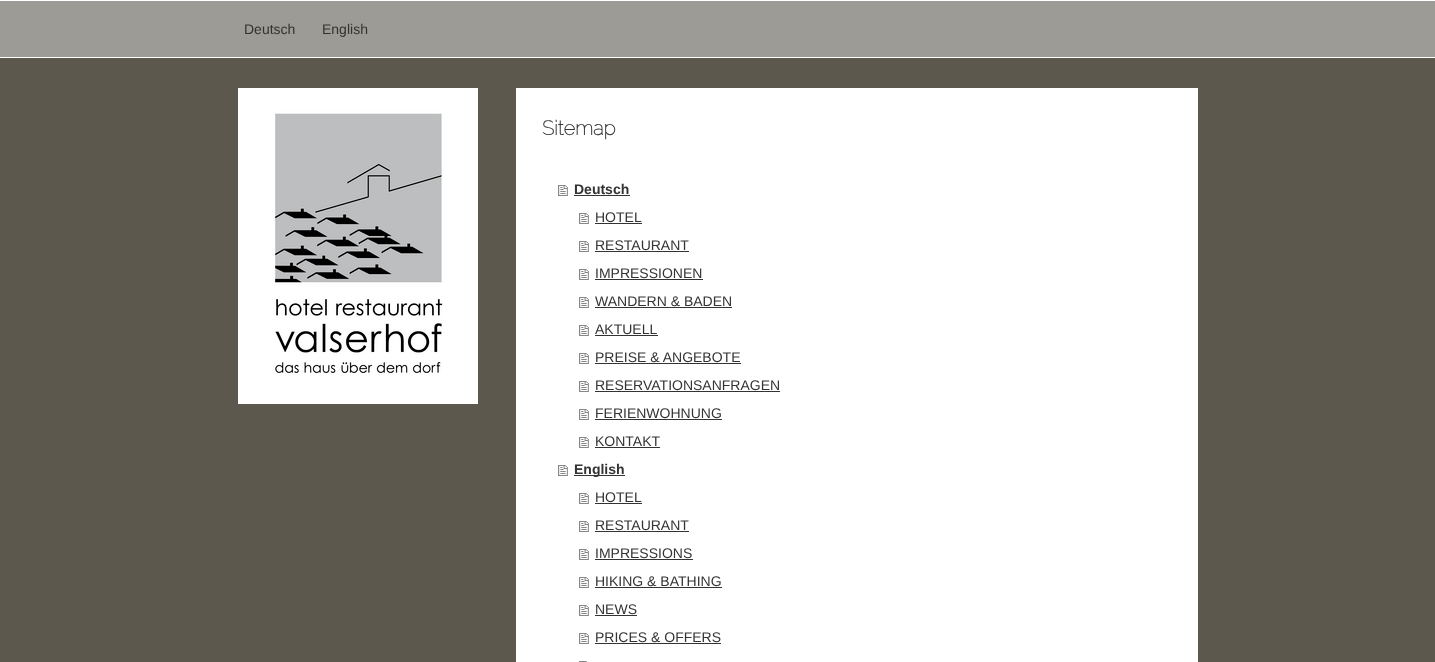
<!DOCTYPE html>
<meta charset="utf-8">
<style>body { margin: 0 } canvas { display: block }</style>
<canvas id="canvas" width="1435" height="662"></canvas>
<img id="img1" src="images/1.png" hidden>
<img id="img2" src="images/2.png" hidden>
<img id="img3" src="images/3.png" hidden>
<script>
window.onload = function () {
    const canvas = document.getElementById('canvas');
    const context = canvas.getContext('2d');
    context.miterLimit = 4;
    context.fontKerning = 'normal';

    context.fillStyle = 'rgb(92, 88, 78)';
    context.fillRect(0, 0, 1435, 662);
    context.fillStyle = 'rgb(157, 155, 149)';
    context.fillRect(0, 1, 1435, 56);
    context.fillStyle = 'rgb(255, 255, 255)';
    context.fillRect(0, 0, 1435, 1);
    context.fillRect(0, 57, 1435, 1);
    context.drawImage(document.getElementById('img1'), 238, 88, 240, 316);
    context.fillRect(516, 88, 682, 574);
    context.drawImage(document.getElementById('img2'), 558, 185, 10, 11);
    context.fillStyle = 'rgb(51, 51, 51)';
    context.fillRect(574, 195, 56, 1);
    context.drawImage(document.getElementById('img2'), 579, 213, 10, 11);
    context.fillRect(595, 223, 47, 1);
    context.drawImage(document.getElementById('img2'), 579, 241, 10, 11);
    context.fillRect(595, 251, 94, 1);
    context.drawImage(document.getElementById('img2'), 579, 269, 10, 11);
    context.fillRect(595, 279, 108, 1);
    context.drawImage(document.getElementById('img2'), 579, 297, 10, 11);
    context.fillRect(595, 307, 137, 1);
    context.drawImage(document.getElementById('img2'), 579, 325, 10, 11);
    context.fillRect(595, 335, 63, 1);
    context.drawImage(document.getElementById('img2'), 579, 353, 10, 11);
    context.fillRect(595, 363, 146, 1);
    context.drawImage(document.getElementById('img2'), 579, 381, 10, 11);
    context.fillRect(595, 391, 185, 1);
    context.drawImage(document.getElementById('img2'), 579, 409, 10, 11);
    context.fillRect(595, 419, 127, 1);
    context.drawImage(document.getElementById('img2'), 579, 437, 10, 11);
    context.fillRect(595, 447, 65, 1);
    context.drawImage(document.getElementById('img2'), 558, 465, 10, 11);
    context.fillRect(574, 475, 51, 1);
    context.drawImage(document.getElementById('img2'), 579, 493, 10, 11);
    context.fillRect(595, 503, 47, 1);
    context.drawImage(document.getElementById('img2'), 579, 521, 10, 11);
    context.fillRect(595, 531, 94, 1);
    context.drawImage(document.getElementById('img2'), 579, 549, 10, 11);
    context.fillRect(595, 559, 98, 1);
    context.drawImage(document.getElementById('img2'), 579, 577, 10, 11);
    context.fillRect(595, 587, 127, 1);
    context.drawImage(document.getElementById('img2'), 579, 605, 10, 11);
    context.fillRect(595, 615, 42, 1);
    context.drawImage(document.getElementById('img2'), 579, 633, 10, 11);
    context.fillRect(595, 643, 126, 1);
    context.drawImage(document.getElementById('img3'), 579, 661, 8, 1);
    context.font = '14px Liberation Sans';
    context.fillText('Deutsch', 244, 34);
    context.fillText('English', 322, 34);
    context.font = 'bold 20px Raleway';
    context.fillText('Sitemap', 542, 135);
    context.font = 'bold 14px Liberation Sans';
    context.fillText('Deutsch', 574, 194);
    context.font = '14px Liberation Sans';
    context.fillText('HOTEL', 595, 222);
    context.fillText('RESTAURANT', 595, 250);
    context.fillText('IMPRESSIONEN', 595, 278);
    context.fillText('WANDERN & BADEN', 595, 306);
    context.fillText('AKTUELL', 595, 334);
    context.fillText('PREISE & ANGEBOTE', 595, 362);
    context.fillText('RESERVATIONSANFRAGEN', 595, 390);
    context.fillText('FERIENWOHNUNG', 595, 418);
    context.fillText('KONTAKT', 595, 446);
    context.font = 'bold 14px Liberation Sans';
    context.fillText('English', 574, 474);
    context.font = '14px Liberation Sans';
    context.fillText('HOTEL', 595, 502);
    context.fillText('RESTAURANT', 595, 530);
    context.fillText('IMPRESSIONS', 595, 558);
    context.fillText('HIKING & BATHING', 595, 586);
    context.fillText('NEWS', 595, 614);
    context.fillText('PRICES & OFFERS', 595, 642);
};
</script>
